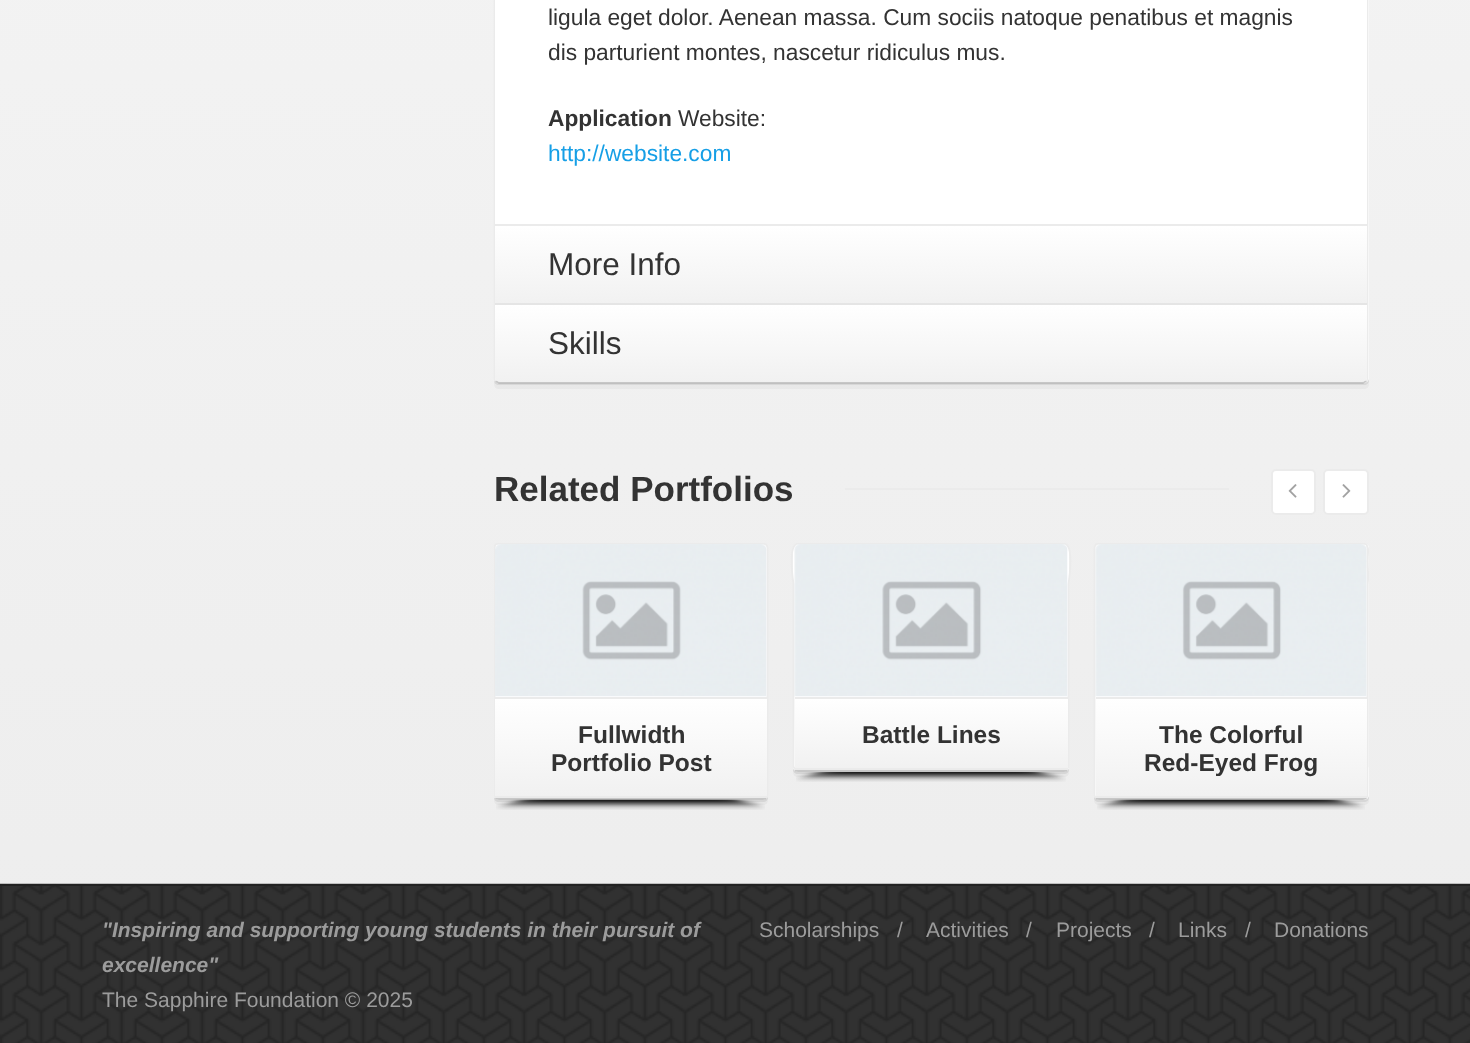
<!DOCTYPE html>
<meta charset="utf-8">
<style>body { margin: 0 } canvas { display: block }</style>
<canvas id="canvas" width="1470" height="1043"></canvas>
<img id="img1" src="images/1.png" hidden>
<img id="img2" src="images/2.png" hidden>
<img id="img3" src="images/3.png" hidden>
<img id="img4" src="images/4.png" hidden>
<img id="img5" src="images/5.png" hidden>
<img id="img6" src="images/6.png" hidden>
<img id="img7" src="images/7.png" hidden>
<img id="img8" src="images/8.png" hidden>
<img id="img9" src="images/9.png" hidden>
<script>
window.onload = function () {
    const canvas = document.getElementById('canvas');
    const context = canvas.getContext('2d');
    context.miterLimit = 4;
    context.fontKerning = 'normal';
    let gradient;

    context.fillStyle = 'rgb(255, 255, 255)';
    context.fillRect(0, 0, 1470, 1043);
    gradient = context.createLinearGradient(735, -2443, 735, 1043);
    gradient.addColorStop(0, 'rgb(255, 255, 255)');
    gradient.addColorStop(1, 'rgb(237, 237, 237)');
    context.fillStyle = gradient;
    context.fillRect(0, 0, 1470, 884);
    context.fillStyle = 'rgb(223, 223, 223)';
    context.beginPath();
    context.moveTo(494, 380);
    context.bezierCurveTo(494, 383, 496, 385, 499, 385);
    context.lineTo(1364, 385);
    context.bezierCurveTo(1367, 385, 1369, 383, 1369, 380);
    context.lineTo(1369, -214);
    context.lineTo(1368, -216);
    context.lineTo(1368, 378);
    context.bezierCurveTo(1368, 381, 1366, 383, 1363, 383);
    context.lineTo(499, 383);
    context.bezierCurveTo(497, 383, 495, 382, 494, 380);
    context.closePath();
    context.fill();
    context.fillStyle = 'rgba(0, 0, 0, 0.03)';
    context.beginPath();
    context.moveTo(494, 380);
    context.lineTo(494, 384);
    context.bezierCurveTo(494, 387, 496, 389, 499, 389);
    context.lineTo(1364, 389);
    context.bezierCurveTo(1367, 389, 1369, 387, 1369, 384);
    context.lineTo(1369, -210);
    context.lineTo(1368, -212);
    context.lineTo(1368, 378);
    context.bezierCurveTo(1368, 381, 1366, 383, 1363, 383);
    context.lineTo(499, 383);
    context.bezierCurveTo(497, 383, 495, 382, 494, 380);
    context.closePath();
    context.fill();
    context.fillStyle = 'rgb(255, 255, 255)';
    context.beginPath();
    context.roundRect(494, -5, 875, 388, 5);
    context.fill();
    context.beginPath();
    context.moveTo(1366.5, 381);
    context.lineTo(1363, 382.5);
    context.lineTo(499, 382.5);
    context.lineTo(495.5, 381);
    context.strokeStyle = 'rgba(0, 0, 0, 0.22)';
    context.lineWidth = 1.8;
    context.stroke();
    context.beginPath();
    context.moveTo(495.5, 381);
    context.bezierCurveTo(495, 380.5, 494.5, 379, 494.5, 378);
    context.lineTo(494.5, -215);
    context.bezierCurveTo(494.5, -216.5, 495, -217.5, 495.5, -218.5);
    context.bezierCurveTo(496.5, -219, 497.5, -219.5, 499, -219.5);
    context.lineTo(1363, -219.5);
    context.bezierCurveTo(1364.5, -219.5, 1365.5, -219, 1366.5, -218.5);
    context.bezierCurveTo(1367, -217.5, 1367.5, -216.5, 1367.5, -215);
    context.lineTo(1367.5, 378);
    context.bezierCurveTo(1367.5, 379, 1367, 380.5, 1366.5, 381);
    context.strokeStyle = 'rgb(235, 235, 235)';
    context.stroke();
    context.fillRect(495, 0, 872, 224);
    context.fillStyle = 'rgb(235, 235, 235)';
    context.fillRect(495, 224, 872, 2);
    gradient = context.createLinearGradient(931, 226, 931, 305);
    gradient.addColorStop(0, 'rgb(255, 255, 255)');
    gradient.addColorStop(1, 'rgb(241, 241, 241)');
    context.fillStyle = gradient;
    context.fillRect(495, 226, 872, 77);
    context.fillStyle = 'rgb(229, 229, 229)';
    context.fillRect(495, 303, 872, 2);
    gradient = context.createLinearGradient(931, 304, 931, 382);
    gradient.addColorStop(0, 'rgb(255, 255, 255)');
    gradient.addColorStop(1, 'rgb(241, 241, 241)');
    context.fillStyle = gradient;
    context.beginPath();
    context.roundRect(495, 305, 872, 77, [0, 0, 5, 5]);
    context.fill();
    context.fillStyle = 'rgb(235, 235, 235)';
    context.fillRect(845, 488, 384, 2);
    context.fillStyle = 'rgb(255, 255, 255)';
    context.beginPath();
    context.roundRect(1272, 470, 43, 44, 4);
    context.fill();
    context.lineWidth = 2;
    context.stroke();
    context.drawImage(document.getElementById('img1'), 1288, 484, 9, 14);
    context.beginPath();
    context.roundRect(1324, 470, 44, 44, 4);
    context.fill();
    context.stroke();
    context.drawImage(document.getElementById('img2'), 1342, 484, 9, 14);
    context.fillStyle = 'rgb(221, 221, 221)';
    context.beginPath();
    context.moveTo(494, 797);
    context.bezierCurveTo(494, 800, 496, 802, 499, 802);
    context.lineTo(763, 802);
    context.bezierCurveTo(766, 802, 768, 800, 768, 797);
    context.lineTo(768, 796);
    context.bezierCurveTo(767, 798, 765, 800, 763, 800);
    context.lineTo(499, 800);
    context.bezierCurveTo(497, 800, 495, 799, 494, 797);
    context.closePath();
    context.fill();
    context.fillStyle = 'rgba(0, 0, 0, 0.03)';
    context.beginPath();
    context.moveTo(494, 797);
    context.lineTo(494, 800);
    context.bezierCurveTo(494, 803, 496, 805, 499, 805);
    context.lineTo(763, 805);
    context.bezierCurveTo(766, 805, 768, 803, 768, 800);
    context.lineTo(768, 796);
    context.bezierCurveTo(767, 798, 765, 800, 763, 800);
    context.lineTo(499, 800);
    context.bezierCurveTo(497, 800, 495, 799, 494, 797);
    context.closePath();
    context.fill();
    context.fillStyle = 'rgb(255, 255, 255)';
    context.beginPath();
    context.roundRect(494, 543, 274, 257, 5);
    context.fill();
    context.beginPath();
    context.moveTo(766, 797.5);
    context.bezierCurveTo(765.5, 798.5, 764, 799, 763, 799);
    context.lineTo(499, 799);
    context.bezierCurveTo(497.5, 799, 496.5, 798.5, 495.5, 797.5);
    context.strokeStyle = 'rgba(0, 0, 0, 0.22)';
    context.lineWidth = 1.8;
    context.stroke();
    context.save();
    context.beginPath();
    context.rect(494, 543, 875, 320);
    context.clip();
    context.beginPath();
    context.moveTo(495.5, 797.5);
    context.bezierCurveTo(495, 797, 494.5, 795.5, 494.5, 794.5);
    context.lineTo(494.5, 548);
    context.bezierCurveTo(494.5, 546.5, 495, 545.5, 495.5, 544.5);
    context.bezierCurveTo(496.5, 544, 497.5, 543.5, 499, 543.5);
    context.lineTo(763, 543.5);
    context.bezierCurveTo(764, 543.5, 765.5, 544, 766, 544.5);
    context.bezierCurveTo(767, 545.5, 767.5, 546.5, 767.5, 548);
    context.lineTo(767.5, 794.5);
    context.bezierCurveTo(767.5, 795.5, 767, 797, 766, 797.5);
    context.strokeStyle = 'rgb(235, 235, 235)';
    context.stroke();
    context.restore();
    context.fillStyle = 'rgb(235, 235, 235)';
    context.fillRect(495, 697, 272, 2);
    context.drawImage(document.getElementById('img3'), 495, 544, 272, 153);
    gradient = context.createLinearGradient(631, 698, 631, 796);
    gradient.addColorStop(0, 'rgb(255, 255, 255)');
    gradient.addColorStop(1, 'rgb(241, 241, 241)');
    context.fillStyle = gradient;
    context.fillRect(495, 699, 272, 97);
    context.fillStyle = 'rgb(235, 235, 235)';
    context.fillRect(495, 796, 272, 2);
    context.drawImage(document.getElementById('img4'), 496, 799, 269, 11);
    context.fillStyle = 'rgb(221, 221, 221)';
    context.beginPath();
    context.moveTo(793, 768);
    context.lineTo(793, 769);
    context.bezierCurveTo(793, 772, 795, 774, 798, 774);
    context.lineTo(1064, 774);
    context.bezierCurveTo(1067, 774, 1069, 772, 1069, 769);
    context.lineTo(1069, 768);
    context.bezierCurveTo(1068, 770, 1066, 772, 1064, 772);
    context.lineTo(798, 772);
    context.bezierCurveTo(796, 772, 794, 770, 793, 768);
    context.closePath();
    context.fill();
    context.fillStyle = 'rgba(0, 0, 0, 0.03)';
    context.beginPath();
    context.moveTo(793, 768);
    context.lineTo(793, 772);
    context.bezierCurveTo(793, 775, 795, 777, 798, 777);
    context.lineTo(1064, 777);
    context.bezierCurveTo(1067, 777, 1069, 775, 1069, 772);
    context.lineTo(1069, 768);
    context.bezierCurveTo(1068, 770, 1066, 772, 1064, 772);
    context.lineTo(798, 772);
    context.bezierCurveTo(796, 772, 794, 770, 793, 768);
    context.closePath();
    context.fill();
    context.fillStyle = 'rgb(255, 255, 255)';
    context.beginPath();
    context.roundRect(793, 543, 276, 229, 5);
    context.fill();
    context.beginPath();
    context.moveTo(1067, 769.5);
    context.bezierCurveTo(1066.5, 770.5, 1065, 771, 1064, 771);
    context.lineTo(798, 771);
    context.bezierCurveTo(797, 771, 795.5, 770.5, 795, 769.5);
    context.stroke();
    context.save();
    context.beginPath();
    context.rect(494, 543, 875, 320);
    context.clip();
    context.beginPath();
    context.moveTo(795, 769.5);
    context.lineTo(793.5, 766.5);
    context.lineTo(793.5, 584);
    context.bezierCurveTo(793.5, 583.5, 787, 543.5, 798, 543.5);
    context.lineTo(1064, 543.5);
    context.bezierCurveTo(1075, 543.5, 1068.5, 583.5, 1068.5, 584);
    context.lineTo(1068.5, 766.5);
    context.lineTo(1067, 769.5);
    context.strokeStyle = 'rgb(235, 235, 235)';
    context.stroke();
    context.restore();
    context.fillStyle = 'rgb(235, 235, 235)';
    context.fillRect(795, 697, 273, 2);
    context.drawImage(document.getElementById('img5'), 794, 544, 274, 153);
    gradient = context.createLinearGradient(931, 698, 931, 768);
    gradient.addColorStop(0, 'rgb(255, 255, 255)');
    gradient.addColorStop(1, 'rgb(241, 241, 241)');
    context.fillStyle = gradient;
    context.fillRect(795, 699, 273, 69);
    context.fillStyle = 'rgb(235, 235, 235)';
    context.fillRect(795, 768, 273, 2);
    context.drawImage(document.getElementById('img6'), 796, 772, 270, 10);
    context.fillStyle = 'rgb(222, 222, 222)';
    context.beginPath();
    context.moveTo(1094, 796);
    context.lineTo(1094, 797);
    context.bezierCurveTo(1094, 800, 1096, 802, 1099, 802);
    context.lineTo(1364, 802);
    context.bezierCurveTo(1367, 802, 1369, 800, 1369, 797);
    context.lineTo(1369, 549);
    context.lineTo(1368, 547);
    context.lineTo(1368, 794);
    context.bezierCurveTo(1368, 797, 1366, 800, 1363, 800);
    context.lineTo(1099, 800);
    context.bezierCurveTo(1097, 800, 1095, 798, 1094, 796);
    context.closePath();
    context.fill();
    context.fillStyle = 'rgba(0, 0, 0, 0.03)';
    context.beginPath();
    context.moveTo(1094, 796);
    context.lineTo(1094, 800);
    context.bezierCurveTo(1094, 803, 1096, 805, 1099, 805);
    context.lineTo(1364, 805);
    context.bezierCurveTo(1367, 805, 1369, 803, 1369, 800);
    context.lineTo(1369, 553);
    context.lineTo(1368, 551);
    context.lineTo(1368, 794);
    context.bezierCurveTo(1368, 797, 1366, 800, 1363, 800);
    context.lineTo(1099, 800);
    context.bezierCurveTo(1097, 800, 1095, 798, 1094, 796);
    context.closePath();
    context.fill();
    context.fillStyle = 'rgb(255, 255, 255)';
    context.beginPath();
    context.roundRect(1094, 543, 275, 257, 5);
    context.fill();
    context.beginPath();
    context.moveTo(1366.5, 797.5);
    context.bezierCurveTo(1365.5, 798.5, 1364.5, 799, 1363, 799);
    context.lineTo(1099, 799);
    context.bezierCurveTo(1098, 799, 1096.5, 798.5, 1096, 797.5);
    context.stroke();
    context.save();
    context.beginPath();
    context.rect(494, 543, 875, 320);
    context.clip();
    context.beginPath();
    context.moveTo(1096, 797.5);
    context.bezierCurveTo(1095, 797, 1094.5, 795.5, 1094.5, 794.5);
    context.lineTo(1094.5, 548);
    context.bezierCurveTo(1094.5, 546.5, 1095, 545.5, 1096, 544.5);
    context.bezierCurveTo(1096.5, 544, 1098, 543.5, 1099, 543.5);
    context.lineTo(1363, 543.5);
    context.bezierCurveTo(1364.5, 543.5, 1365.5, 544, 1366.5, 544.5);
    context.bezierCurveTo(1367, 545.5, 1367.5, 546.5, 1367.5, 548);
    context.lineTo(1367.5, 794.5);
    context.bezierCurveTo(1367.5, 795.5, 1367, 797, 1366.5, 797.5);
    context.strokeStyle = 'rgb(235, 235, 235)';
    context.stroke();
    context.restore();
    gradient = context.createLinearGradient(1231, 698, 1231, 796);
    gradient.addColorStop(0, 'rgb(255, 255, 255)');
    gradient.addColorStop(1, 'rgb(241, 241, 241)');
    context.fillStyle = gradient;
    context.fillRect(1096, 699, 271, 97);
    context.save();
    context.beginPath();
    context.rect(494, 543, 875, 320);
    context.clip();
    context.beginPath();
    context.moveTo(1370.5, 769.5);
    context.lineTo(1369.5, 766.5);
    context.lineTo(1369.5, 584);
    context.bezierCurveTo(1369.5, 583.5, 1363, 543.5, 1374, 543.5);
    context.lineTo(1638, 543.5);
    context.bezierCurveTo(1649, 543.5, 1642.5, 583.5, 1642.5, 584);
    context.lineTo(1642.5, 766.5);
    context.lineTo(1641, 769.5);
    context.strokeStyle = 'rgb(235, 235, 235)';
    context.stroke();
    context.restore();
    context.fillStyle = 'rgb(235, 235, 235)';
    context.fillRect(1096, 697, 271, 2);
    context.drawImage(document.getElementById('img7'), 1095, 544, 272, 153);
    context.fillRect(1096, 796, 271, 2);
    context.drawImage(document.getElementById('img8'), 1097, 799, 268, 11);
    context.drawImage(document.getElementById('img9'), 0, 883, 1470, 160);
    context.fillStyle = 'rgb(34, 34, 34)';
    context.fillRect(0, 884, 1470, 2);
    context.font = '22.75px Liberation Sans';
    context.fillStyle = 'rgb(51, 51, 51)';
    context.fillText('ligula eget dolor. Aenean massa. Cum sociis natoque penatibus et magnis', 548, 25);
    context.fillText('dis parturient montes, nascetur ridiculus mus.', 548, 60);
    context.font = 'bold 22.75px Liberation Sans';
    context.fillText('Application', 548, 126);
    context.font = '22.75px Liberation Sans';
    context.fillText('Website:', 678, 126);
    context.fillStyle = 'rgb(22, 159, 230)';
    context.fillText('http://website.com', 548, 161);
    context.font = '31.5px Liberation Sans';
    context.fillStyle = 'rgb(51, 51, 51)';
    context.fillText('More Info', 548, 275);
    context.fillText('Skills', 548, 354);
    context.font = 'bold 35px Liberation Sans';
    context.fillText('Related Portfolios', 494, 501);
    context.font = 'bold 24.5px Liberation Sans';
    context.fillText('Fullwidth', 578, 743);
    context.fillText('Portfolio Post', 551, 771);
    context.fillText('Battle Lines', 862, 743);
    context.fillText('The Colorful', 1159, 743);
    context.fillText('Red-Eyed Frog', 1144, 771);
    context.font = 'italic bold 21px Liberation Sans';
    context.fillStyle = 'rgb(156, 156, 156)';
    context.fillText('"Inspiring and supporting young students in their pursuit of', 102, 937);
    context.fillText('excellence"', 102, 972);
    context.font = '21px Liberation Sans';
    context.fillText('The Sapphire Foundation © 2025', 102, 1007);
    context.fillText('Scholarships', 759, 937);
    context.fillText('/', 897, 937);
    context.fillText('Activities', 926, 937);
    context.fillText('/', 1026, 937);
    context.fillText('Projects', 1056, 937);
    context.fillText('/', 1149, 937);
    context.fillText('Links', 1178, 937);
    context.fillText('/', 1245, 937);
    context.fillText('Donations', 1274, 937);
};
</script>
